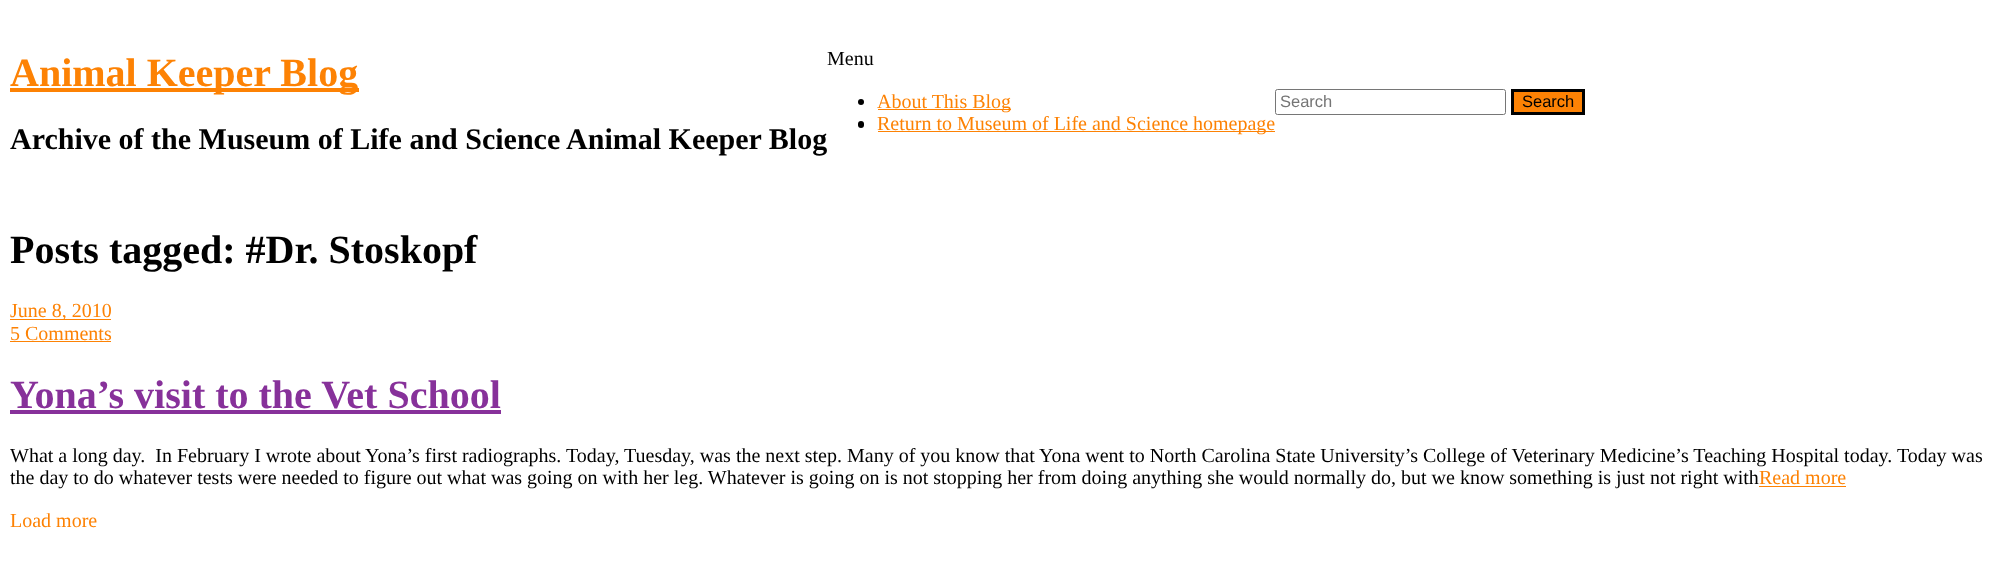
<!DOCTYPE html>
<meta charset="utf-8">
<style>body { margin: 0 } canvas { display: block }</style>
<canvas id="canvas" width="2013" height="577"></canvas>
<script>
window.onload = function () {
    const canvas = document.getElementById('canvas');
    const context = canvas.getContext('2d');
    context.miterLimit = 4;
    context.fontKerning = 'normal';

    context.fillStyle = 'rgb(255, 255, 255)';
    context.fillRect(0, 0, 2013, 577);
    context.fillStyle = 'rgb(253, 130, 4)';
    context.fillRect(10, 88, 349, 4);
    context.fillStyle = 'rgb(0, 0, 0)';
    context.beginPath();
    context.arc(861, 102, 3, 0, 2 * Math.PI);
    context.fill();
    context.fillStyle = 'rgb(253, 130, 4)';
    context.fillRect(878, 109, 133, 1);
    context.fillStyle = 'rgb(0, 0, 0)';
    context.beginPath();
    context.roundRect(858, 121, 6, 7, 3);
    context.fill();
    context.fillStyle = 'rgb(253, 130, 4)';
    context.fillRect(878, 131, 397, 1);
    context.beginPath();
    context.roundRect(1275.5, 89.5, 230, 25, 2);
    context.strokeStyle = 'rgb(118, 118, 118)';
    context.stroke();
    context.beginPath();
    context.rect(1512.5, 90.5, 71, 23);
    context.fill();
    context.strokeStyle = 'rgb(0, 0, 0)';
    context.lineWidth = 3;
    context.stroke();
    context.fillRect(10, 319, 101, 1);
    context.fillRect(10, 341, 101, 1);
    context.fillStyle = 'rgb(135, 49, 154)';
    context.fillRect(10, 410, 491, 4);
    context.fillStyle = 'rgb(253, 130, 4)';
    context.fillRect(1759, 486, 87, 1);
    context.font = 'bold 40px Liberation Serif';
    context.fillText('Animal Keeper Blog', 10, 86);
    context.font = 'bold 30px Liberation Serif';
    context.fillStyle = 'rgb(0, 0, 0)';
    context.fillText('Archive of the Museum of Life and Science Animal Keeper Blog', 10, 149);
    context.font = '20px Liberation Serif';
    context.fillText('Menu', 827, 65);
    context.fillStyle = 'rgb(253, 130, 4)';
    context.fillText('About This Blog', 877, 108);
    context.fillText('Return to Museum of Life and Science homepage', 877, 130);
    context.font = '16.5px Liberation Sans';
    context.fillStyle = 'rgb(117, 117, 117)';
    context.fillText('Search', 1280, 107);
    context.fillStyle = 'rgb(0, 0, 0)';
    context.fillText('Search', 1522, 107);
    context.font = 'bold 40px Liberation Serif';
    context.fillText('Posts tagged: #Dr. Stoskopf', 10, 263);
    context.font = '20px Liberation Serif';
    context.fillStyle = 'rgb(253, 130, 4)';
    context.fillText('June 8, 2010', 10, 317);
    context.fillText('5 Comments', 10, 340);
    context.font = 'bold 40px Liberation Serif';
    context.fillStyle = 'rgb(135, 49, 154)';
    context.fillText('Yona’s visit to the Vet School', 10, 408);
    context.font = '20px Liberation Serif';
    context.fillStyle = 'rgb(0, 0, 0)';
    context.fillText('What a long day.  In February I wrote about Yona’s first radiographs. Today, Tuesday, was the next step. Many of you know that Yona went to North Carolina State University’s College of Veterinary Medicine’s Teaching Hospital today. Today was', 10, 462);
    context.fillText('the day to do whatever tests were needed to figure out what was going on with her leg. Whatever is going on is not stopping her from doing anything she would normally do, but we know something is just not right with', 10, 484);
    context.fillStyle = 'rgb(253, 130, 4)';
    context.fillText('Read more', 1759, 484);
    context.fillText('Load more', 10, 527);
};
</script>
